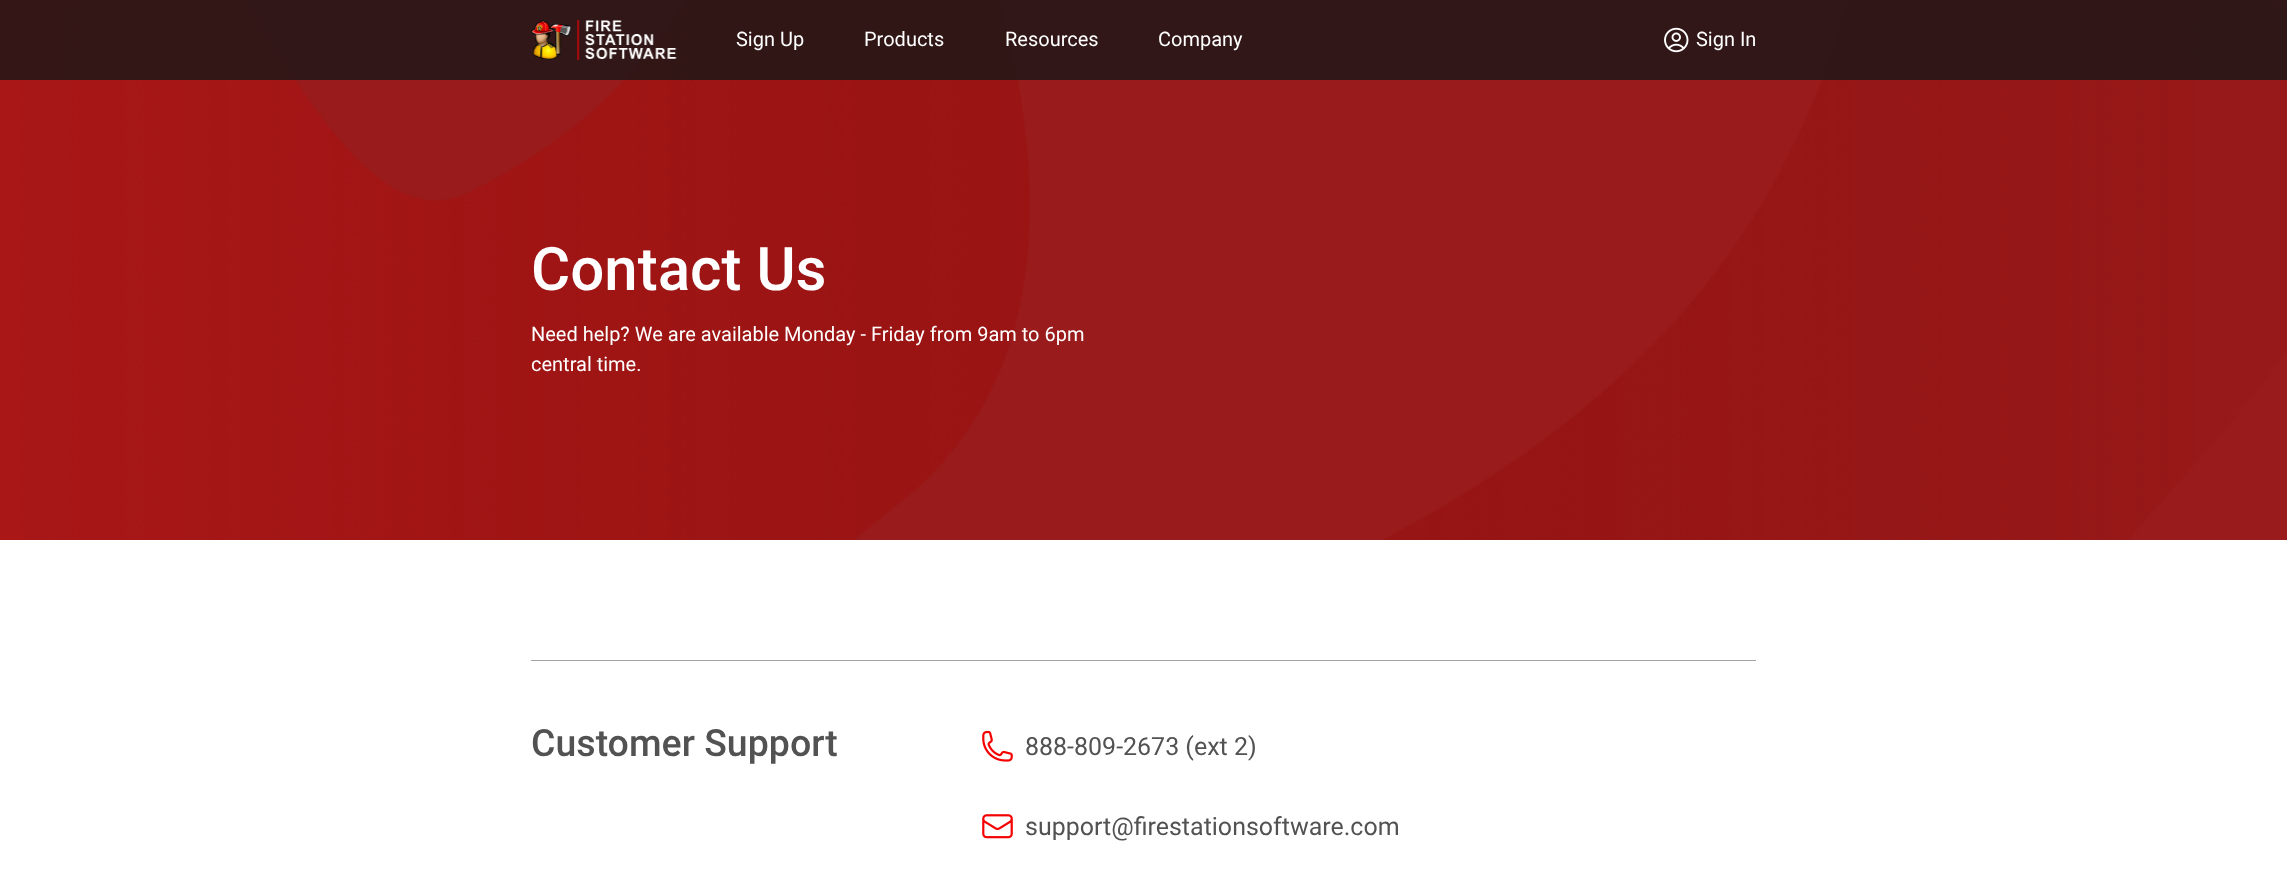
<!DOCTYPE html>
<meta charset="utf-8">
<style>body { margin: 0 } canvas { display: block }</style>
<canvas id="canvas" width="2287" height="885"></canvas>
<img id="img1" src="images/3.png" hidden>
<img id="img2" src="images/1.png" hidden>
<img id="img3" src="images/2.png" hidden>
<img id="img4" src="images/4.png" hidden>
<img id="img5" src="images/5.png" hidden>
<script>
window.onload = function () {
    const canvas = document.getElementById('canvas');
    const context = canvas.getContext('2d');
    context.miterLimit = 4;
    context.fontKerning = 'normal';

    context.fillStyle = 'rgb(255, 255, 255)';
    context.fillRect(0, 0, 2287, 885);
    context.drawImage(document.getElementById('img1'), 0, 0, 2287, 540);
    context.fillStyle = 'rgba(22, 22, 23, 0.8)';
    context.fillRect(0, 0, 2287, 80);
    context.drawImage(document.getElementById('img2'), 531, 20, 146, 40);
    context.drawImage(document.getElementById('img3'), 1664, 27, 25, 26);
    context.fillStyle = 'rgb(163, 163, 163)';
    context.fillRect(531, 660, 1225, 1);
    context.drawImage(document.getElementById('img4'), 982, 730, 31, 32);
    context.drawImage(document.getElementById('img5'), 982, 814, 31, 25);
    context.font = '20px Roboto';
    context.fillStyle = 'rgb(255, 255, 255)';
    context.fillText('Sign Up', 736, 46);
    context.fillText('Products', 864, 46);
    context.fillText('Resources', 1005, 46);
    context.fillText('Company', 1158, 46);
    context.fillText('Sign In', 1696, 46);
    context.font = '500 60px Roboto';
    context.fillText('Contact Us', 531, 290);
    context.font = '20px Roboto';
    context.fillText('Need help? We are available Monday - Friday from 9am to 6pm', 531, 341);
    context.fillText('central time.', 531, 371);
    context.font = '500 37.5px Roboto';
    context.fillStyle = 'rgb(82, 82, 82)';
    context.fillText('Customer Support', 531, 756);
    context.font = '25px Roboto';
    context.fillText('888-809-2673 (ext 2)', 1025, 755);
    context.fillText('support@firestationsoftware.com', 1025, 835);
};
</script>
